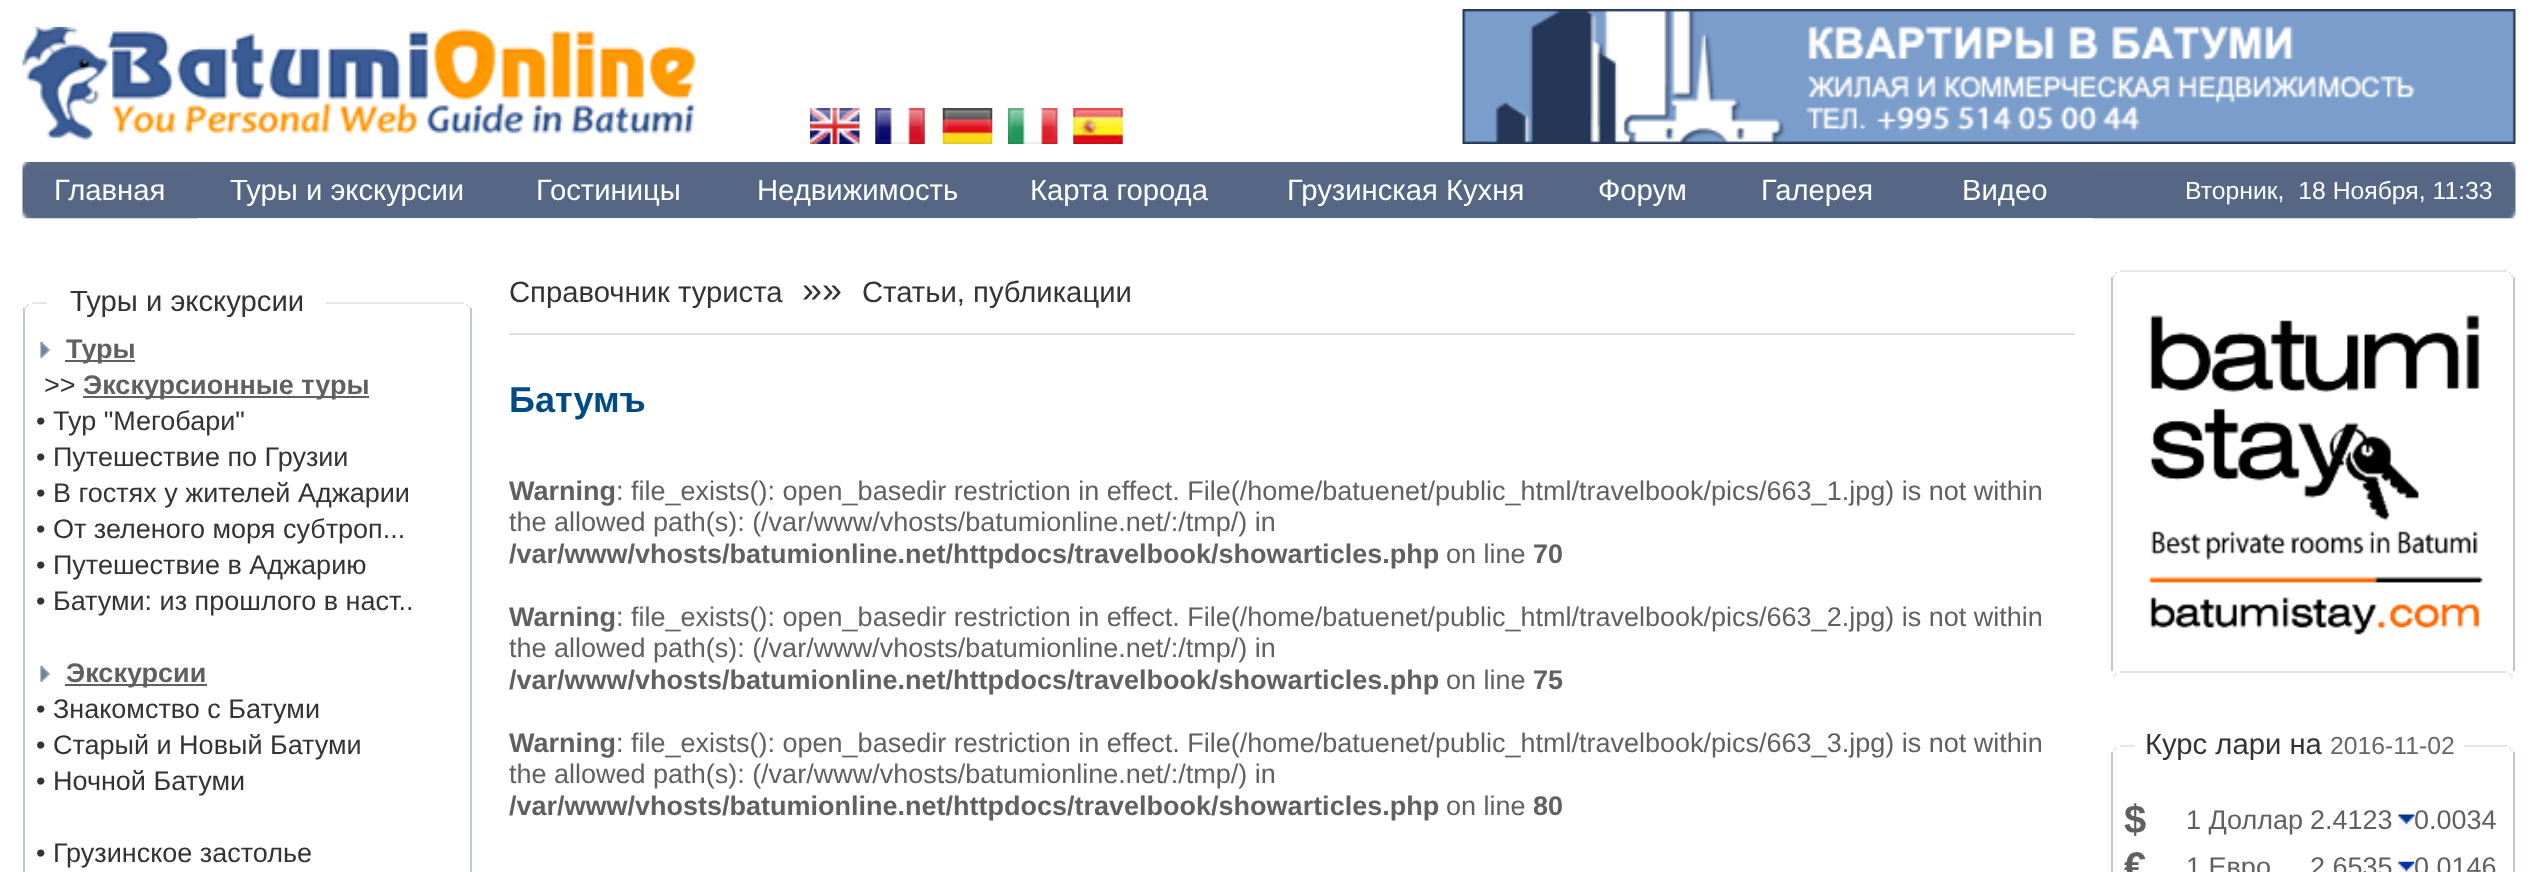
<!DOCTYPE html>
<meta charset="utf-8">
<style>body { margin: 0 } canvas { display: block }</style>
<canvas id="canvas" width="2536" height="872"></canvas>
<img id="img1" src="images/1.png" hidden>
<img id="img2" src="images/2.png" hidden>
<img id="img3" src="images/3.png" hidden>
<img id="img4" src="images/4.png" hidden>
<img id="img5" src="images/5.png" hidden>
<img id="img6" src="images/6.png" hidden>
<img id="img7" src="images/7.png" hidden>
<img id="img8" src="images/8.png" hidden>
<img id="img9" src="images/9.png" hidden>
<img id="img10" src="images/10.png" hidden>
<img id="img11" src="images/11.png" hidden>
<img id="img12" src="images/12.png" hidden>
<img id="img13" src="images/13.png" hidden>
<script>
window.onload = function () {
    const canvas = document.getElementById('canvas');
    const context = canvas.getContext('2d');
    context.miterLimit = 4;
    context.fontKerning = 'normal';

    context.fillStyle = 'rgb(255, 255, 255)';
    context.fillRect(0, 0, 2536, 872);
    context.drawImage(document.getElementById('img1'), 810, 108, 50, 36);
    context.drawImage(document.getElementById('img2'), 875, 108, 50, 36);
    context.drawImage(document.getElementById('img3'), 942, 108, 51, 36);
    context.drawImage(document.getElementById('img4'), 1008, 108, 50, 36);
    context.drawImage(document.getElementById('img5'), 1073, 108, 50, 36);
    context.drawImage(document.getElementById('img6'), 22, 27, 675, 113);
    context.drawImage(document.getElementById('img7'), 1462, 9, 1054, 135);
    context.drawImage(document.getElementById('img8'), 22, 162, 176, 57);
    context.fillStyle = 'rgb(85, 103, 132)';
    context.fillRect(198, 162, 1895, 56);
    context.drawImage(document.getElementById('img9'), 2092, 162, 424, 57);
    context.fillStyle = 'rgb(190, 200, 209)';
    context.fillRect(470, 308, 2, 564);
    context.fillRect(23, 308, 2, 564);
    context.fillStyle = 'rgb(229, 229, 229)';
    context.fillRect(32, 302, 432, 2);
    context.fillStyle = 'rgb(255, 255, 255)';
    context.fillRect(47, 302, 279, 2);
    context.drawImage(document.getElementById('img10'), 40, 342, 11, 16);
    context.fillStyle = 'rgb(96, 96, 96)';
    context.fillRect(65, 360, 70, 2);
    context.fillRect(83, 396, 286, 2);
    context.drawImage(document.getElementById('img10'), 40, 666, 11, 16);
    context.fillRect(65, 684, 142, 2);
    context.fillStyle = 'rgb(229, 229, 229)';
    context.fillRect(466, 304, 2, 2);
    context.fillRect(27, 304, 2, 2);
    context.fillRect(468, 306, 2, 2);
    context.fillRect(25, 306, 2, 2);
    context.fillStyle = 'rgb(224, 224, 224)';
    context.fillRect(509, 333, 1566, 2);
    context.fillStyle = 'rgb(229, 229, 229)';
    context.fillRect(2120, 270, 387, 2);
    context.fillRect(2509, 272, 2, 2);
    context.fillRect(2115, 272, 2, 2);
    context.fillRect(2511, 275, 2, 2);
    context.fillRect(2113, 275, 2, 2);
    context.fillStyle = 'rgb(190, 200, 209)';
    context.fillRect(2513, 277, 2, 394);
    context.fillRect(2111, 277, 2, 394);
    context.drawImage(document.getElementById('img11'), 2148, 315, 335, 320);
    context.fillStyle = 'rgb(229, 229, 229)';
    context.fillRect(2120, 671, 387, 2);
    context.fillRect(2509, 673, 2, 2);
    context.fillRect(2115, 673, 2, 2);
    context.fillRect(2511, 675, 2, 2);
    context.fillRect(2113, 675, 2, 2);
    context.fillStyle = 'rgb(190, 200, 209)';
    context.fillRect(2513, 752, 2, 120);
    context.fillRect(2111, 752, 2, 120);
    context.fillStyle = 'rgb(229, 229, 229)';
    context.fillRect(2120, 745, 387, 2);
    context.fillStyle = 'rgb(255, 255, 255)';
    context.fillRect(2135, 745, 329, 2);
    context.drawImage(document.getElementById('img12'), 2398, 814, 17, 16);
    context.drawImage(document.getElementById('img13'), 2398, 861, 17, 11);
    context.fillStyle = 'rgb(229, 229, 229)';
    context.fillRect(2509, 747, 2, 2);
    context.fillRect(2115, 747, 2, 2);
    context.fillRect(2511, 749, 2, 2);
    context.fillRect(2113, 749, 2, 2);
    context.font = '29.25px Liberation Sans';
    context.fillStyle = 'rgb(255, 255, 255)';
    context.fillText('Главная', 54, 200);
    context.fillText('Туры и экскурсии', 230, 200);
    context.fillText('Гостиницы', 536, 200);
    context.fillText('Недвижимость', 757, 200);
    context.fillText('Карта города', 1030, 200);
    context.fillText('Грузинская Кухня', 1287, 200);
    context.fillText('Форум', 1598, 200);
    context.fillText('Галерея', 1761, 200);
    context.fillText('Видео', 1962, 200);
    context.font = '24.75px Liberation Sans';
    context.fillText('Вторник,  18 Ноября, 11:33', 2185, 199);
    context.font = '29.25px Liberation Sans';
    context.fillStyle = 'rgb(51, 51, 51)';
    context.fillText('Туры и экскурсии', 70, 311);
    context.font = 'bold 27px Liberation Sans';
    context.fillStyle = 'rgb(96, 96, 96)';
    context.fillText('Туры', 66, 358);
    context.font = '27px Liberation Sans';
    context.fillStyle = 'rgb(51, 51, 51)';
    context.fillText('>>', 44, 394);
    context.font = 'bold 27px Liberation Sans';
    context.fillStyle = 'rgb(96, 96, 96)';
    context.fillText('Экскурсионные туры', 83, 394);
    context.font = '27px Liberation Sans';
    context.fillStyle = 'rgb(51, 51, 51)';
    context.fillText('• Тур "Мегобари"', 36, 430);
    context.fillText('• Путешествие по Грузии', 36, 466);
    context.fillText('• В гостях у жителей Аджарии', 36, 502);
    context.fillText('• От зеленого моря субтроп...', 36, 538);
    context.fillText('• Путешествие в Аджарию', 36, 574);
    context.fillText('• Батуми: из прошлого в наст..', 36, 610);
    context.font = 'bold 27px Liberation Sans';
    context.fillStyle = 'rgb(96, 96, 96)';
    context.fillText('Экскурсии', 66, 682);
    context.font = '27px Liberation Sans';
    context.fillStyle = 'rgb(51, 51, 51)';
    context.fillText('• Знакомство с Батуми', 36, 718);
    context.fillText('• Старый и Новый Батуми', 36, 754);
    context.fillText('• Ночной Батуми', 36, 790);
    context.fillText('• Грузинское застолье', 36, 862);
    context.font = '29.25px Liberation Sans';
    context.fillText('Справочник туриста', 509, 302);
    context.font = '36px Liberation Sans';
    context.fillText('»»', 802, 302);
    context.font = '29.25px Liberation Sans';
    context.fillText('Статьи, публикации', 862, 302);
    context.font = 'bold 36px Liberation Sans';
    context.fillStyle = 'rgb(0, 75, 132)';
    context.fillText('Батумъ', 509, 412);
    context.font = 'bold 27px Liberation Sans';
    context.fillStyle = 'rgb(96, 96, 96)';
    context.fillText('Warning', 509, 500);
    context.font = '27px Liberation Sans';
    context.fillText(': file_exists(): open_basedir restriction in effect. File(/home/batuenet/public_html/travelbook/pics/663_1.jpg) is not within', 616, 500);
    context.fillText('the allowed path(s): (/var/www/vhosts/batumionline.net/:/tmp/) in', 509, 531);
    context.font = 'bold 27px Liberation Sans';
    context.fillText('/var/www/vhosts/batumionline.net/httpdocs/travelbook/showarticles.php', 509, 563);
    context.font = '27px Liberation Sans';
    context.fillText('on line', 1446, 563);
    context.font = 'bold 27px Liberation Sans';
    context.fillText('70', 1533, 563);
    context.fillText('Warning', 509, 626);
    context.font = '27px Liberation Sans';
    context.fillText(': file_exists(): open_basedir restriction in effect. File(/home/batuenet/public_html/travelbook/pics/663_2.jpg) is not within', 616, 626);
    context.fillText('the allowed path(s): (/var/www/vhosts/batumionline.net/:/tmp/) in', 509, 657);
    context.font = 'bold 27px Liberation Sans';
    context.fillText('/var/www/vhosts/batumionline.net/httpdocs/travelbook/showarticles.php', 509, 689);
    context.font = '27px Liberation Sans';
    context.fillText('on line', 1446, 689);
    context.font = 'bold 27px Liberation Sans';
    context.fillText('75', 1533, 689);
    context.fillText('Warning', 509, 752);
    context.font = '27px Liberation Sans';
    context.fillText(': file_exists(): open_basedir restriction in effect. File(/home/batuenet/public_html/travelbook/pics/663_3.jpg) is not within', 616, 752);
    context.fillText('the allowed path(s): (/var/www/vhosts/batumionline.net/:/tmp/) in', 509, 783);
    context.font = 'bold 27px Liberation Sans';
    context.fillText('/var/www/vhosts/batumionline.net/httpdocs/travelbook/showarticles.php', 509, 815);
    context.font = '27px Liberation Sans';
    context.fillText('on line', 1446, 815);
    context.font = 'bold 27px Liberation Sans';
    context.fillText('80', 1533, 815);
    context.font = '29.25px Liberation Sans';
    context.fillStyle = 'rgb(51, 51, 51)';
    context.fillText('Курс лари на', 2145, 754);
    context.font = '24.75px Liberation Sans';
    context.fillStyle = 'rgb(102, 102, 102)';
    context.fillText('2016-11-02', 2330, 754);
    context.font = 'bold 40px Liberation Sans';
    context.fillStyle = 'rgb(96, 96, 96)';
    context.fillText('$', 2124, 833);
    context.font = '27px Liberation Sans';
    context.fillText('1 Доллар', 2186, 829);
    context.fillText('2.4123', 2310, 829);
    context.fillText('0.0034', 2414, 829);
    context.font = 'bold 40px Liberation Sans';
    context.fillText('€', 2124, 880);
    context.font = '27px Liberation Sans';
    context.fillText('1 Евро', 2186, 876);
    context.fillText('2.6535', 2310, 876);
    context.fillText('0.0146', 2414, 876);
};
</script>
